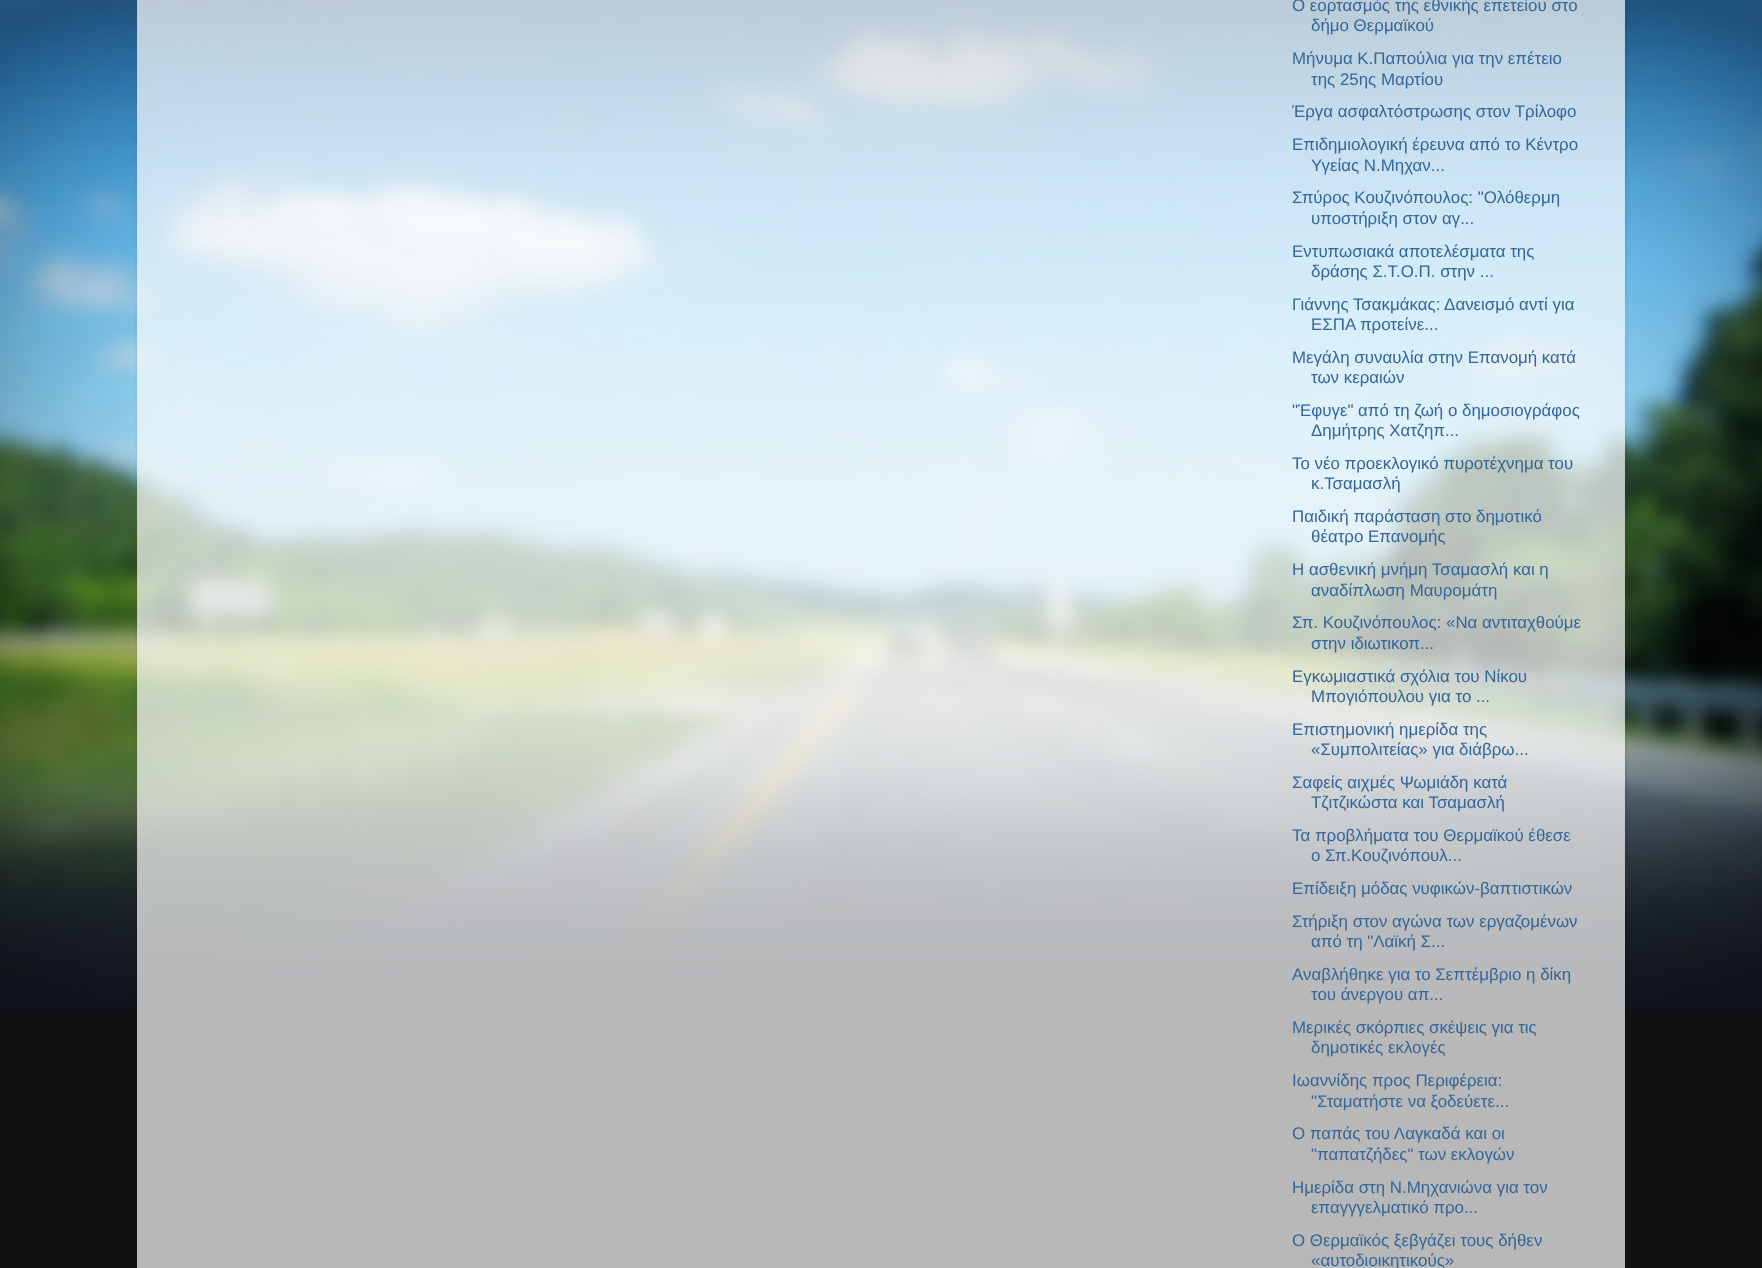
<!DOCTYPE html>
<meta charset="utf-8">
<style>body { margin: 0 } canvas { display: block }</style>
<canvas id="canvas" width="1762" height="1268"></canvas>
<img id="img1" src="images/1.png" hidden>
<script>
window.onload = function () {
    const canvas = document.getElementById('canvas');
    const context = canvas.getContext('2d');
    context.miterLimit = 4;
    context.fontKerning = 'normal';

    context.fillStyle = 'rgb(17, 17, 17)';
    context.fillRect(0, 0, 1762, 1268);
    context.drawImage(document.getElementById('img1'), 0, 0, 1762, 1011);
    context.save();
    context.beginPath();
    context.moveTo(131, 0);
    context.lineTo(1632, 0);
    context.lineTo(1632, 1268);
    context.lineTo(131, 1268);
    context.closePath();
    context.moveTo(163, -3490);
    context.lineTo(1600, -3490);
    context.bezierCurveTo(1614, -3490, 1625, -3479, 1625, -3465);
    context.lineTo(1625, 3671);
    context.lineTo(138, 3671);
    context.lineTo(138, -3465);
    context.bezierCurveTo(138, -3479, 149, -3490, 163, -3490);
    context.closePath();
    context.clip('evenodd');
    context.fillStyle = 'rgba(0, 0, 0, 0.15)';
    context.filter = 'blur(2px)';
    context.beginPath();
    context.roundRect(138, -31, 1487, 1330, 25);
    context.fill();
    context.filter = 'none';
    context.restore();
    context.fillStyle = 'rgba(255, 255, 255, 0.7)';
    context.fillRect(137, 0, 1488, 1268);
    context.font = '16.9px Liberation Sans';
    context.fillStyle = 'rgb(51, 102, 153)';
    context.fillText('O εορτασμός της εθνικής επετείου στο', 1292, 11);
    context.fillText('δήμο Θερμαϊκού', 1311, 31);
    context.fillText('Μήνυμα Κ.Παπούλια για την επέτειο', 1292, 64);
    context.fillText('της 25ης Μαρτίου', 1311, 85);
    context.fillText('Έργα ασφαλτόστρωσης στον Τρίλοφο', 1292, 117);
    context.fillText('Επιδημιολογική έρευνα από το Κέντρο', 1292, 150);
    context.fillText('Υγείας Ν.Μηχαν...', 1311, 171);
    context.fillText('Σπύρος Κουζινόπουλος: "Ολόθερμη', 1292, 203);
    context.fillText('υποστήριξη στον αγ...', 1311, 224);
    context.fillText('Εντυπωσιακά αποτελέσματα της', 1292, 257);
    context.fillText('δράσης Σ.Τ.Ο.Π. στην ...', 1311, 277);
    context.fillText('Γιάννης Τσακμάκας: Δανεισμό αντί για', 1292, 310);
    context.fillText('ΕΣΠΑ προτείνε...', 1311, 330);
    context.fillText('Μεγάλη συναυλία στην Επανομή κατά', 1292, 363);
    context.fillText('των κεραιών', 1311, 383);
    context.fillText('"Έφυγε" από τη ζωή ο δημοσιογράφος', 1292, 416);
    context.fillText('Δημήτρης Χατζηπ...', 1311, 436);
    context.fillText('Το νέο προεκλογικό πυροτέχνημα του', 1292, 469);
    context.fillText('κ.Τσαμασλή', 1311, 489);
    context.fillText('Παιδική παράσταση στο δημοτικό', 1292, 522);
    context.fillText('θέατρο Επανομής', 1311, 542);
    context.fillText('H ασθενική μνήμη Τσαμασλή και η', 1292, 575);
    context.fillText('αναδίπλωση Μαυρομάτη', 1311, 596);
    context.fillText('Σπ. Κουζινόπουλος: «Να αντιταχθούμε', 1292, 628);
    context.fillText('στην ιδιωτικοπ...', 1311, 649);
    context.fillText('Εγκωμιαστικά σχόλια του Νίκου', 1292, 682);
    context.fillText('Μπογιόπουλου για το ...', 1311, 702);
    context.fillText('Επιστημονική ημερίδα της', 1292, 735);
    context.fillText('«Συμπολιτείας» για διάβρω...', 1311, 755);
    context.fillText('Σαφείς αιχμές Ψωμιάδη κατά', 1292, 788);
    context.fillText('Τζιτζικώστα και Τσαμασλή', 1311, 808);
    context.fillText('Τα προβλήματα του Θερμαϊκού έθεσε', 1292, 841);
    context.fillText('ο Σπ.Κουζινόπουλ...', 1311, 861);
    context.fillText('Eπίδειξη μόδας νυφικών-βαπτιστικών', 1292, 894);
    context.fillText('Στήριξη στον αγώνα των εργαζομένων', 1292, 927);
    context.fillText('από τη "Λαϊκή Σ...', 1311, 947);
    context.fillText('Αναβλήθηκε για το Σεπτέμβριο η δίκη', 1292, 980);
    context.fillText('του άνεργου απ...', 1311, 1000);
    context.fillText('Μερικές σκόρπιες σκέψεις για τις', 1292, 1033);
    context.fillText('δημοτικές εκλογές', 1311, 1053);
    context.fillText('Ιωαννίδης προς Περιφέρεια:', 1292, 1086);
    context.fillText('"Σταματήστε να ξοδεύετε...', 1311, 1107);
    context.fillText('O παπάς του Λαγκαδά και οι', 1292, 1139);
    context.fillText('"παπατζήδες" των εκλογών', 1311, 1160);
    context.fillText('Ημερίδα στη Ν.Μηχανιώνα για τον', 1292, 1193);
    context.fillText('επαγγγελματικό προ...', 1311, 1213);
    context.fillText('Ο Θερμαϊκός ξεβγάζει τους δήθεν', 1292, 1246);
    context.fillText('«αυτοδιοικητικούς»', 1311, 1266);
};
</script>
